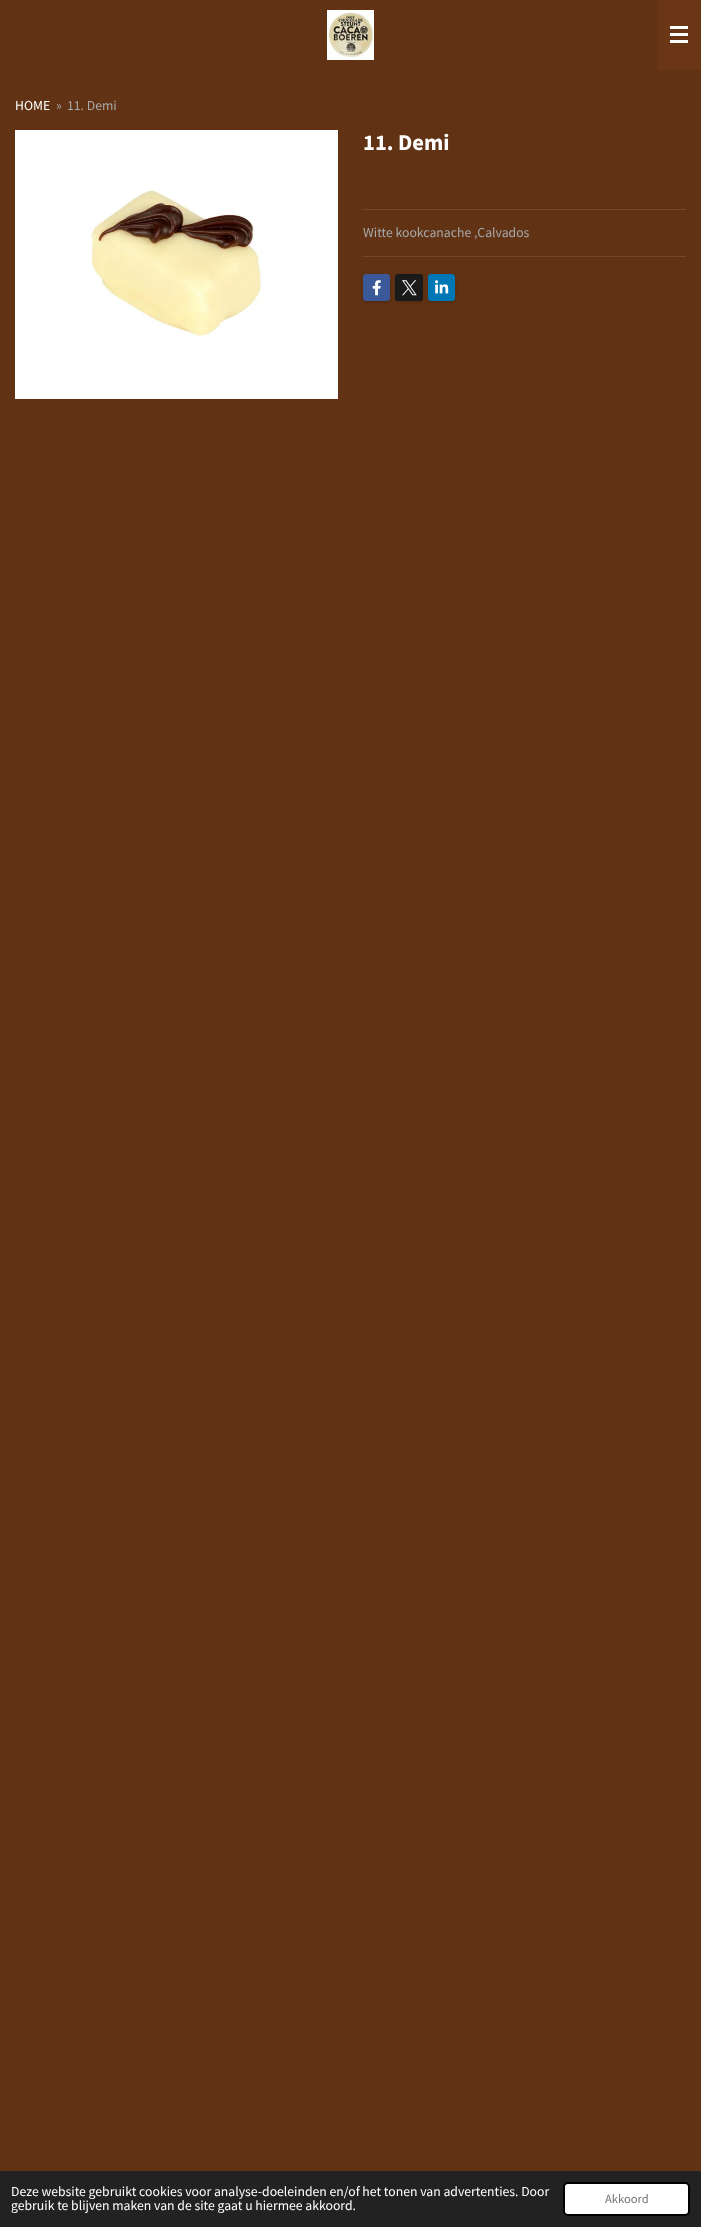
<!DOCTYPE html>
<meta charset="utf-8">
<style>body { margin: 0 } canvas { display: block }</style>
<canvas id="canvas" width="701" height="2227"></canvas>
<img id="img1" src="images/1.png" hidden>
<img id="img2" src="images/2.png" hidden>
<img id="img3" src="images/3.png" hidden>
<img id="img4" src="images/4.png" hidden>
<img id="img5" src="images/5.png" hidden>
<script>
window.onload = function () {
    const canvas = document.getElementById('canvas');
    const context = canvas.getContext('2d');
    context.miterLimit = 4;
    context.fontKerning = 'normal';

    context.fillStyle = 'rgb(97, 50, 19)';
    context.fillRect(0, 0, 701, 2227);
    context.drawImage(document.getElementById('img1'), 327, 10, 47, 50);
    context.fillStyle = 'rgb(106, 54, 21)';
    context.fillRect(657, 0, 44, 70);
    context.fillStyle = 'rgb(255, 255, 255)';
    context.fillRect(670, 33, 18, 3);
    context.fillRect(670, 26, 18, 3);
    context.fillRect(670, 40, 18, 3);
    context.drawImage(document.getElementById('img2'), 15, 130, 323, 269);
    context.fillStyle = 'rgb(111, 74, 49)';
    context.fillRect(363, 209, 323, 1);
    context.fillRect(363, 256, 323, 1);
    context.fillStyle = 'rgba(0, 0, 0, 0.2)';
    context.filter = 'blur(1.5px)';
    context.beginPath();
    context.roundRect(363, 275, 27, 27, 3);
    context.fill();
    context.filter = 'none';
    context.fillStyle = 'rgb(59, 89, 152)';
    context.beginPath();
    context.roundRect(363, 274, 27, 27, 3);
    context.fill();
    context.drawImage(document.getElementById('img3'), 372, 280, 9, 16);
    context.fillStyle = 'rgba(0, 0, 0, 0.2)';
    context.filter = 'blur(1.5px)';
    context.beginPath();
    context.roundRect(395, 275, 28, 27, 3);
    context.fill();
    context.filter = 'none';
    context.fillStyle = 'rgb(26, 26, 26)';
    context.beginPath();
    context.roundRect(395, 274, 28, 27, 3);
    context.fill();
    context.drawImage(document.getElementById('img4'), 402, 280, 15, 16);
    context.fillStyle = 'rgba(0, 0, 0, 0.2)';
    context.filter = 'blur(1.5px)';
    context.beginPath();
    context.roundRect(428, 275, 27, 27, 3);
    context.fill();
    context.filter = 'none';
    context.fillStyle = 'rgb(0, 119, 181)';
    context.beginPath();
    context.roundRect(428, 274, 27, 27, 3);
    context.fill();
    context.drawImage(document.getElementById('img5'), 435, 280, 14, 14);
    context.fillStyle = 'rgb(34, 34, 34)';
    context.fillRect(0, 2171, 701, 56);
    context.fillStyle = 'rgb(255, 255, 255)';
    context.beginPath();
    context.roundRect(564, 2183, 125, 32, 4);
    context.fill();
    context.strokeStyle = 'rgb(0, 0, 0)';
    context.lineWidth = 2;
    context.stroke();
    context.font = '13.7px Source Sans Pro';
    context.fillText('HOME', 15, 110);
    context.fillStyle = 'rgb(167, 169, 171)';
    context.fillText('»', 56, 110);
    context.fillText('11. Demi', 67, 110);
    context.font = 'bold 22.5px Source Sans Pro';
    context.fillStyle = 'rgb(255, 255, 255)';
    context.fillText('11. Demi', 363, 150);
    context.font = '13.7px Source Sans Pro';
    context.fillStyle = 'rgb(167, 169, 171)';
    context.fillText('Witte kookcanache ,Calvados', 363, 237);
    context.fillStyle = 'rgb(255, 255, 255)';
    context.fillText('Deze website gebruikt cookies voor analyse-doeleinden en/of het tonen van advertenties. Door', 11, 2196);
    context.fillText('gebruik te blijven maken van de site gaat u hiermee akkoord.', 11, 2210);
    context.font = '12.5px Source Sans Pro';
    context.fillStyle = 'rgb(115, 115, 115)';
    context.fillText('Akkoord', 605, 2203);
};
</script>
